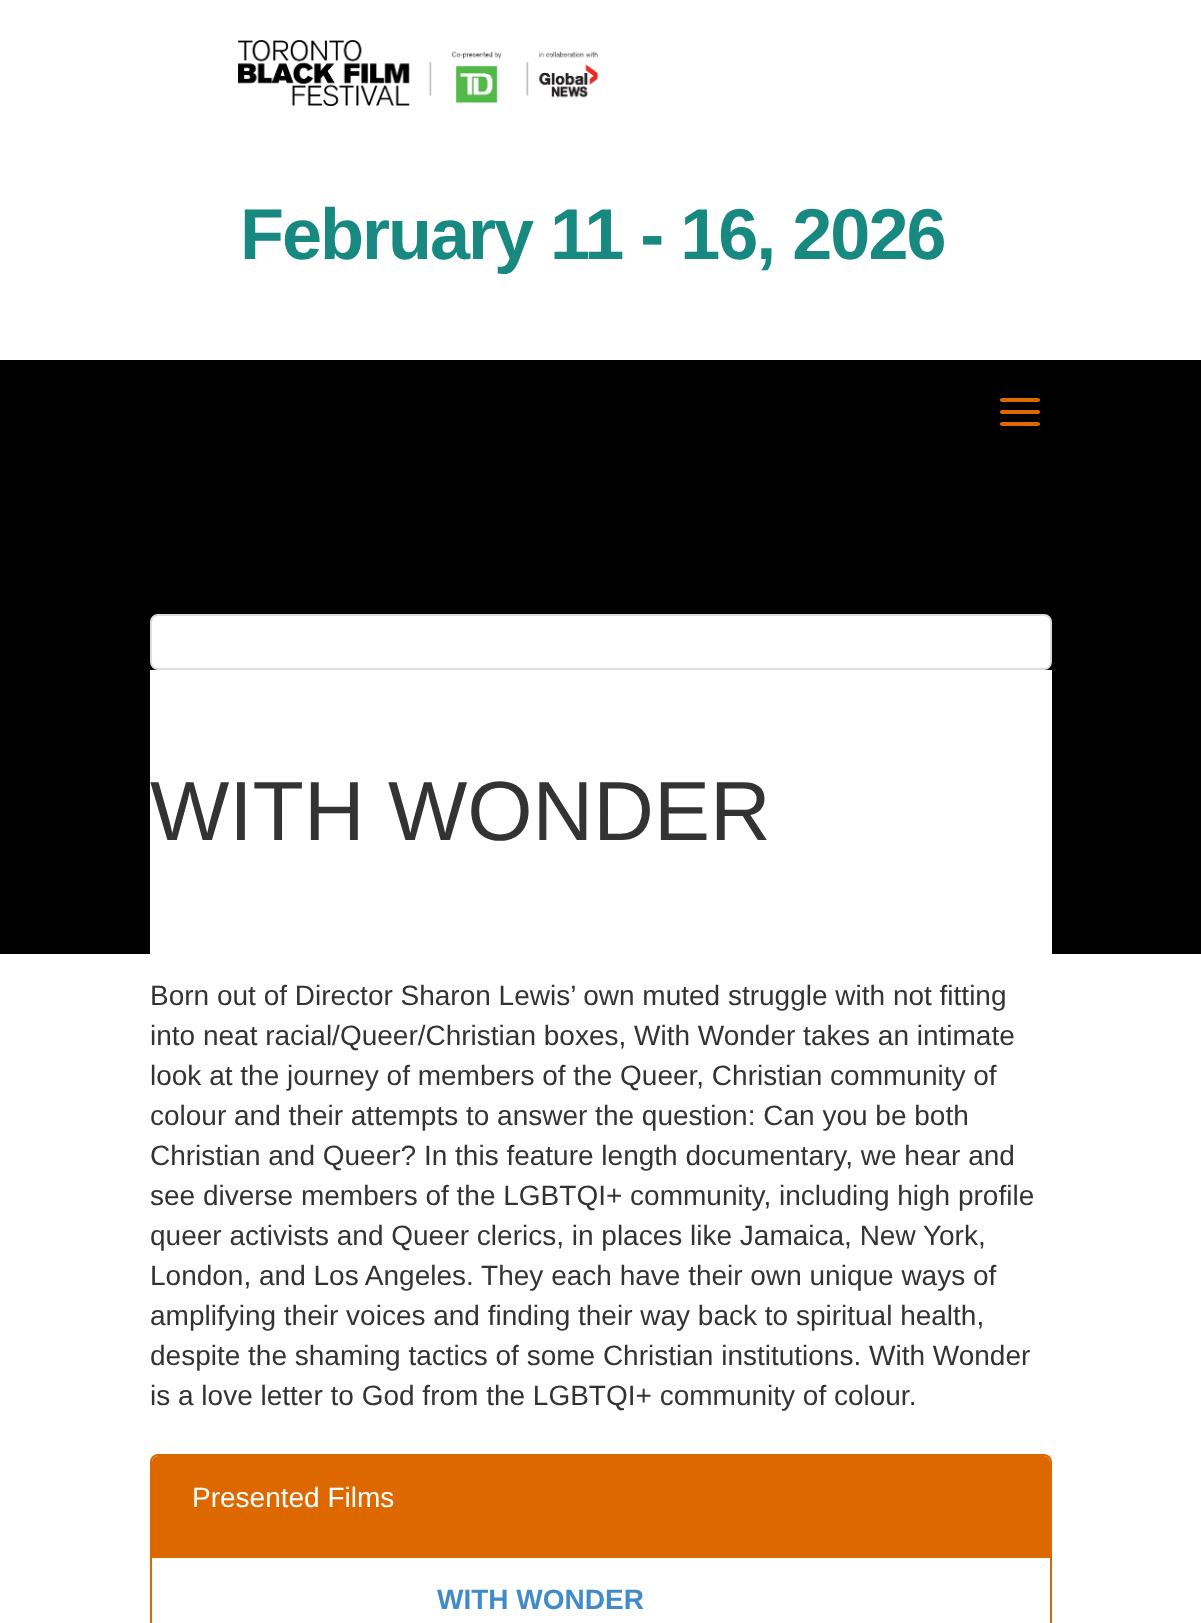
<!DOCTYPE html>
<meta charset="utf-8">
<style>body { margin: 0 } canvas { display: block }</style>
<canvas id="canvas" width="1201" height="1623"></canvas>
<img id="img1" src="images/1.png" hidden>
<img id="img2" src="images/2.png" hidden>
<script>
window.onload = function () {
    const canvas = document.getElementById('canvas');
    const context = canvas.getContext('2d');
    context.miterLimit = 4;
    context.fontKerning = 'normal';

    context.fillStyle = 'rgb(255, 255, 255)';
    context.fillRect(0, 0, 1201, 1623);
    context.drawImage(document.getElementById('img1'), 238, 40, 360, 66);
    context.fillStyle = 'rgb(0, 0, 0)';
    context.fillRect(0, 360, 1201, 594);
    context.drawImage(document.getElementById('img2'), 1000, 398, 40, 28);
    context.fillStyle = 'rgb(255, 255, 255)';
    context.beginPath();
    context.roundRect(151, 615, 900, 54, 7);
    context.fill();
    context.strokeStyle = 'rgb(221, 221, 221)';
    context.lineWidth = 2;
    context.stroke();
    context.fillRect(150, 670, 902, 284);
    context.beginPath();
    context.roundRect(151, 1455, 900, 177, 7);
    context.strokeStyle = 'rgb(221, 104, 0)';
    context.stroke();
    context.fillStyle = 'rgb(221, 104, 0)';
    context.beginPath();
    context.roundRect(152, 1456, 898, 102, [6, 6, 0, 0]);
    context.fill();
    context.letterSpacing = '-2px';
    context.font = 'bold 72px Liberation Sans';
    context.fillStyle = 'rgb(24, 137, 128)';
    context.fillText('February 11 - 16, 2026', 240, 259);
    context.letterSpacing = '0px';
    context.font = '84px Liberation Sans';
    context.fillStyle = 'rgb(51, 51, 51)';
    context.fillText('WITH WONDER', 150, 840);
    context.font = '28px Liberation Sans';
    context.fillText('Born out of Director Sharon Lewis’ own muted struggle with not fitting', 150, 1005);
    context.fillText('into neat racial/Queer/Christian boxes, With Wonder takes an intimate', 150, 1045);
    context.fillText('look at the journey of members of the Queer, Christian community of', 150, 1085);
    context.fillText('colour and their attempts to answer the question: Can you be both', 150, 1125);
    context.fillText('Christian and Queer? In this feature length documentary, we hear and', 150, 1165);
    context.fillText('see diverse members of the LGBTQI+ community, including high profile', 150, 1205);
    context.fillText('queer activists and Queer clerics, in places like Jamaica, New York,', 150, 1245);
    context.fillText('London, and Los Angeles. They each have their own unique ways of', 150, 1285);
    context.fillText('amplifying their voices and finding their way back to spiritual health,', 150, 1325);
    context.fillText('despite the shaming tactics of some Christian institutions. With Wonder', 150, 1365);
    context.fillText('is a love letter to God from the LGBTQI+ community of colour.', 150, 1405);
    context.fillStyle = 'rgb(255, 255, 255)';
    context.fillText('Presented Films', 192, 1507);
    context.font = 'bold 28px Liberation Sans';
    context.fillStyle = 'rgb(66, 139, 202)';
    context.fillText('WITH WONDER', 437, 1609);
};
</script>
